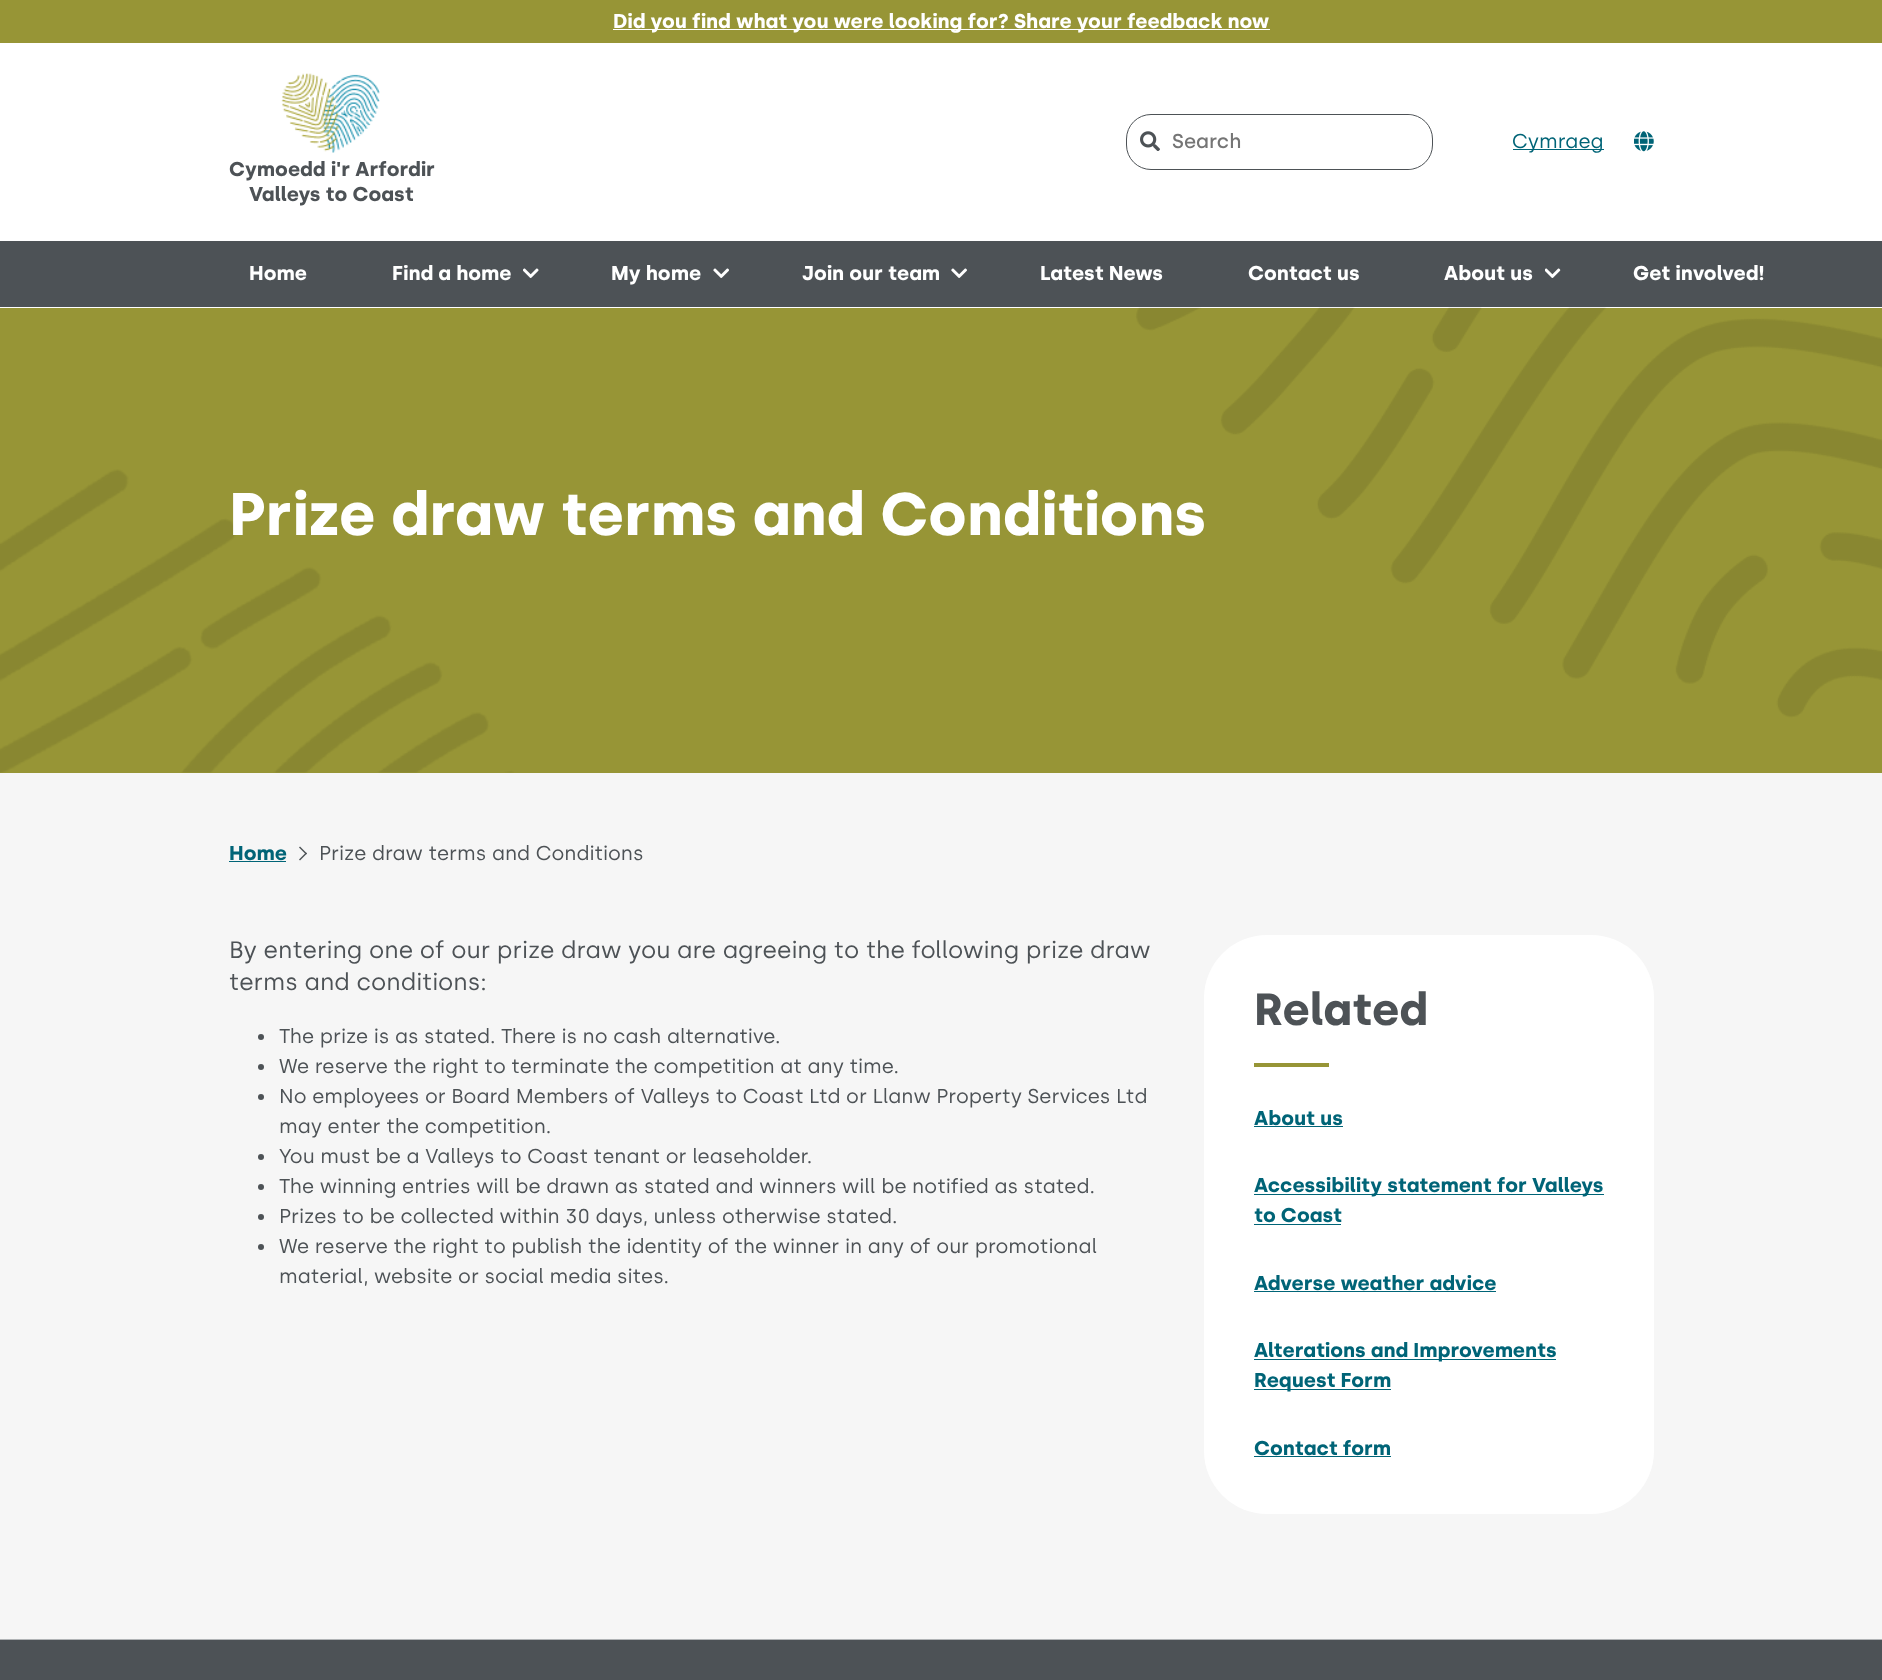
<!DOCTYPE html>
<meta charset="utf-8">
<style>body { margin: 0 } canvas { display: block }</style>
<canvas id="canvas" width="1882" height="1680"></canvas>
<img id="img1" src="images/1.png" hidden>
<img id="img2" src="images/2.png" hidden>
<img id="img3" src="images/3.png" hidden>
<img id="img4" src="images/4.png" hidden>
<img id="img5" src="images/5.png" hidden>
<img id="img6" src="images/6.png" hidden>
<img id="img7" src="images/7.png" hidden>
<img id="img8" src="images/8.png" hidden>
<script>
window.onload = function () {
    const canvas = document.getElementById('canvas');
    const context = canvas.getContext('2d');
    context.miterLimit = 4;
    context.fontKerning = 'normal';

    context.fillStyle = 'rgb(246, 246, 246)';
    context.fillRect(0, 0, 1882, 1680);
    context.fillStyle = 'rgb(151, 149, 54)';
    context.fillRect(0, 0, 1882, 43);
    context.fillStyle = 'rgb(255, 255, 255)';
    context.fillRect(613, 29, 657, 1);
    context.fillRect(0, 43, 1882, 265);
    context.fillStyle = 'rgb(77, 82, 86)';
    context.fillRect(0, 241, 1882, 66);
    context.beginPath();
    context.roundRect(1126.5, 114.5, 306, 55, 24.5);
    context.strokeStyle = 'rgb(77, 82, 86)';
    context.stroke();
    context.fillStyle = 'rgb(255, 255, 255)';
    context.beginPath();
    context.roundRect(1158, 115, 273, 54, [0, 25, 25, 0]);
    context.fill();
    context.drawImage(document.getElementById('img1'), 1140, 131, 20, 20);
    context.fillStyle = 'rgb(0, 100, 119)';
    context.fillRect(1513, 149, 91, 1);
    context.drawImage(document.getElementById('img2'), 1634, 131, 20, 21);
    context.drawImage(document.getElementById('img3'), 281, 73, 99, 80);
    context.drawImage(document.getElementById('img4'), 523, 268, 16, 10);
    context.drawImage(document.getElementById('img5'), 713, 268, 16, 10);
    context.drawImage(document.getElementById('img6'), 951, 268, 16, 10);
    context.drawImage(document.getElementById('img7'), 1545, 268, 16, 10);
    context.fillStyle = 'rgb(151, 149, 54)';
    context.fillRect(0, 308, 1882, 465);
    context.drawImage(document.getElementById('img8'), 0, 307, 1882, 466);
    context.fillStyle = 'rgb(0, 100, 119)';
    context.fillRect(229, 861, 57, 1);
    context.fillStyle = 'rgb(77, 82, 86)';
    context.beginPath();
    context.moveTo(300, 846.5);
    context.lineTo(307, 853.5);
    context.lineTo(306, 854.5);
    context.lineTo(299, 847.5);
    context.closePath();
    context.fill();
    context.beginPath();
    context.moveTo(306, 852.5);
    context.lineTo(307, 853.5);
    context.lineTo(300, 860.5);
    context.lineTo(299, 859.5);
    context.closePath();
    context.fill();
    context.beginPath();
    context.arc(261, 1037, 3, 0, 2 * Math.PI);
    context.fill();
    context.beginPath();
    context.arc(261, 1067, 3, 0, 2 * Math.PI);
    context.fill();
    context.beginPath();
    context.arc(261, 1097, 3, 0, 2 * Math.PI);
    context.fill();
    context.beginPath();
    context.arc(261, 1157, 3, 0, 2 * Math.PI);
    context.fill();
    context.beginPath();
    context.arc(261, 1187, 3, 0, 2 * Math.PI);
    context.fill();
    context.beginPath();
    context.arc(261, 1217, 3, 0, 2 * Math.PI);
    context.fill();
    context.beginPath();
    context.arc(261, 1247, 3, 0, 2 * Math.PI);
    context.fill();
    context.fillStyle = 'rgb(255, 255, 255)';
    context.beginPath();
    context.roundRect(1204, 935, 450, 579, 63);
    context.fill();
    context.fillStyle = 'rgb(151, 149, 54)';
    context.fillRect(1254, 1063, 75, 4);
    context.fillStyle = 'rgb(0, 100, 119)';
    context.fillRect(1254, 1126, 89, 1);
    context.fillRect(1254, 1194, 350, 1);
    context.fillRect(1254, 1224, 87, 1);
    context.fillRect(1254, 1291, 242, 1);
    context.fillRect(1254, 1359, 302, 1);
    context.fillRect(1254, 1389, 137, 1);
    context.fillRect(1254, 1456, 137, 1);
    context.fillStyle = 'rgb(77, 82, 86)';
    context.fillRect(0, 1640, 1882, 40);
    context.fillStyle = 'rgb(177, 180, 182)';
    context.fillRect(0, 1639, 1882, 1);
    context.font = 'bold 20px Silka';
    context.fillStyle = 'rgb(255, 255, 255)';
    context.fillText('Did you find what you were looking for? Share your feedback now', 613, 28);
    context.font = '500 20px Silka';
    context.fillStyle = 'rgb(117, 117, 117)';
    context.fillText('Search', 1172, 148);
    context.font = '20px Silka';
    context.fillStyle = 'rgb(0, 100, 119)';
    context.fillText('Cymraeg', 1512, 148);
    context.font = 'bold 20px Silka';
    context.fillStyle = 'rgb(77, 82, 86)';
    context.fillText('Cymoedd i\'r Arfordir', 229, 176);
    context.fillText('Valleys to Coast', 249, 201);
    context.fillStyle = 'rgb(255, 255, 255)';
    context.fillText('Home', 249, 280);
    context.fillText('Find a home', 392, 280);
    context.fillText('My home', 611, 280);
    context.fillText('Join our team', 802, 280);
    context.fillText('Latest News', 1040, 280);
    context.fillText('Contact us', 1248, 280);
    context.fillText('About us', 1444, 280);
    context.fillText('Get involved!', 1633, 280);
    context.font = 'bold 60px Silka';
    context.fillText('Prize draw terms and Conditions', 229, 535);
    context.font = 'bold 20px Silka';
    context.fillStyle = 'rgb(0, 100, 119)';
    context.fillText('Home', 229, 860);
    context.font = '20px Silka';
    context.fillStyle = 'rgb(77, 82, 86)';
    context.fillText('Prize draw terms and Conditions', 319, 860);
    context.font = '23.75px Silka';
    context.fillText('By entering one of our prize draw you are agreeing to the following prize draw', 229, 958);
    context.fillText('terms and conditions:', 229, 990);
    context.font = '20px Silka';
    context.fillText('The prize is as stated. There is no cash alternative.', 279, 1043);
    context.fillText('We reserve the right to terminate the competition at any time.', 279, 1073);
    context.fillText('No employees or Board Members of Valleys to Coast Ltd or Llanw Property Services Ltd', 279, 1103);
    context.fillText('may enter the competition.', 279, 1133);
    context.fillText('You must be a Valleys to Coast tenant or leaseholder.', 279, 1163);
    context.fillText('The winning entries will be drawn as stated and winners will be notified as stated.', 279, 1193);
    context.fillText('Prizes to be collected within 30 days, unless otherwise stated.', 279, 1223);
    context.fillText('We reserve the right to publish the identity of the winner in any of our promotional', 279, 1253);
    context.fillText('material, website or social media sites.', 279, 1283);
    context.font = 'bold 45px Silka';
    context.fillText('Related', 1254, 1025);
    context.font = 'bold 20px Silka';
    context.fillStyle = 'rgb(0, 100, 119)';
    context.fillText('About us', 1254, 1125);
    context.fillText('Accessibility statement for Valleys', 1254, 1192);
    context.fillText('to Coast', 1254, 1222);
    context.fillText('Adverse weather advice', 1254, 1290);
    context.fillText('Alterations and Improvements', 1254, 1357);
    context.fillText('Request Form', 1254, 1387);
    context.fillText('Contact form', 1254, 1455);
};
</script>
